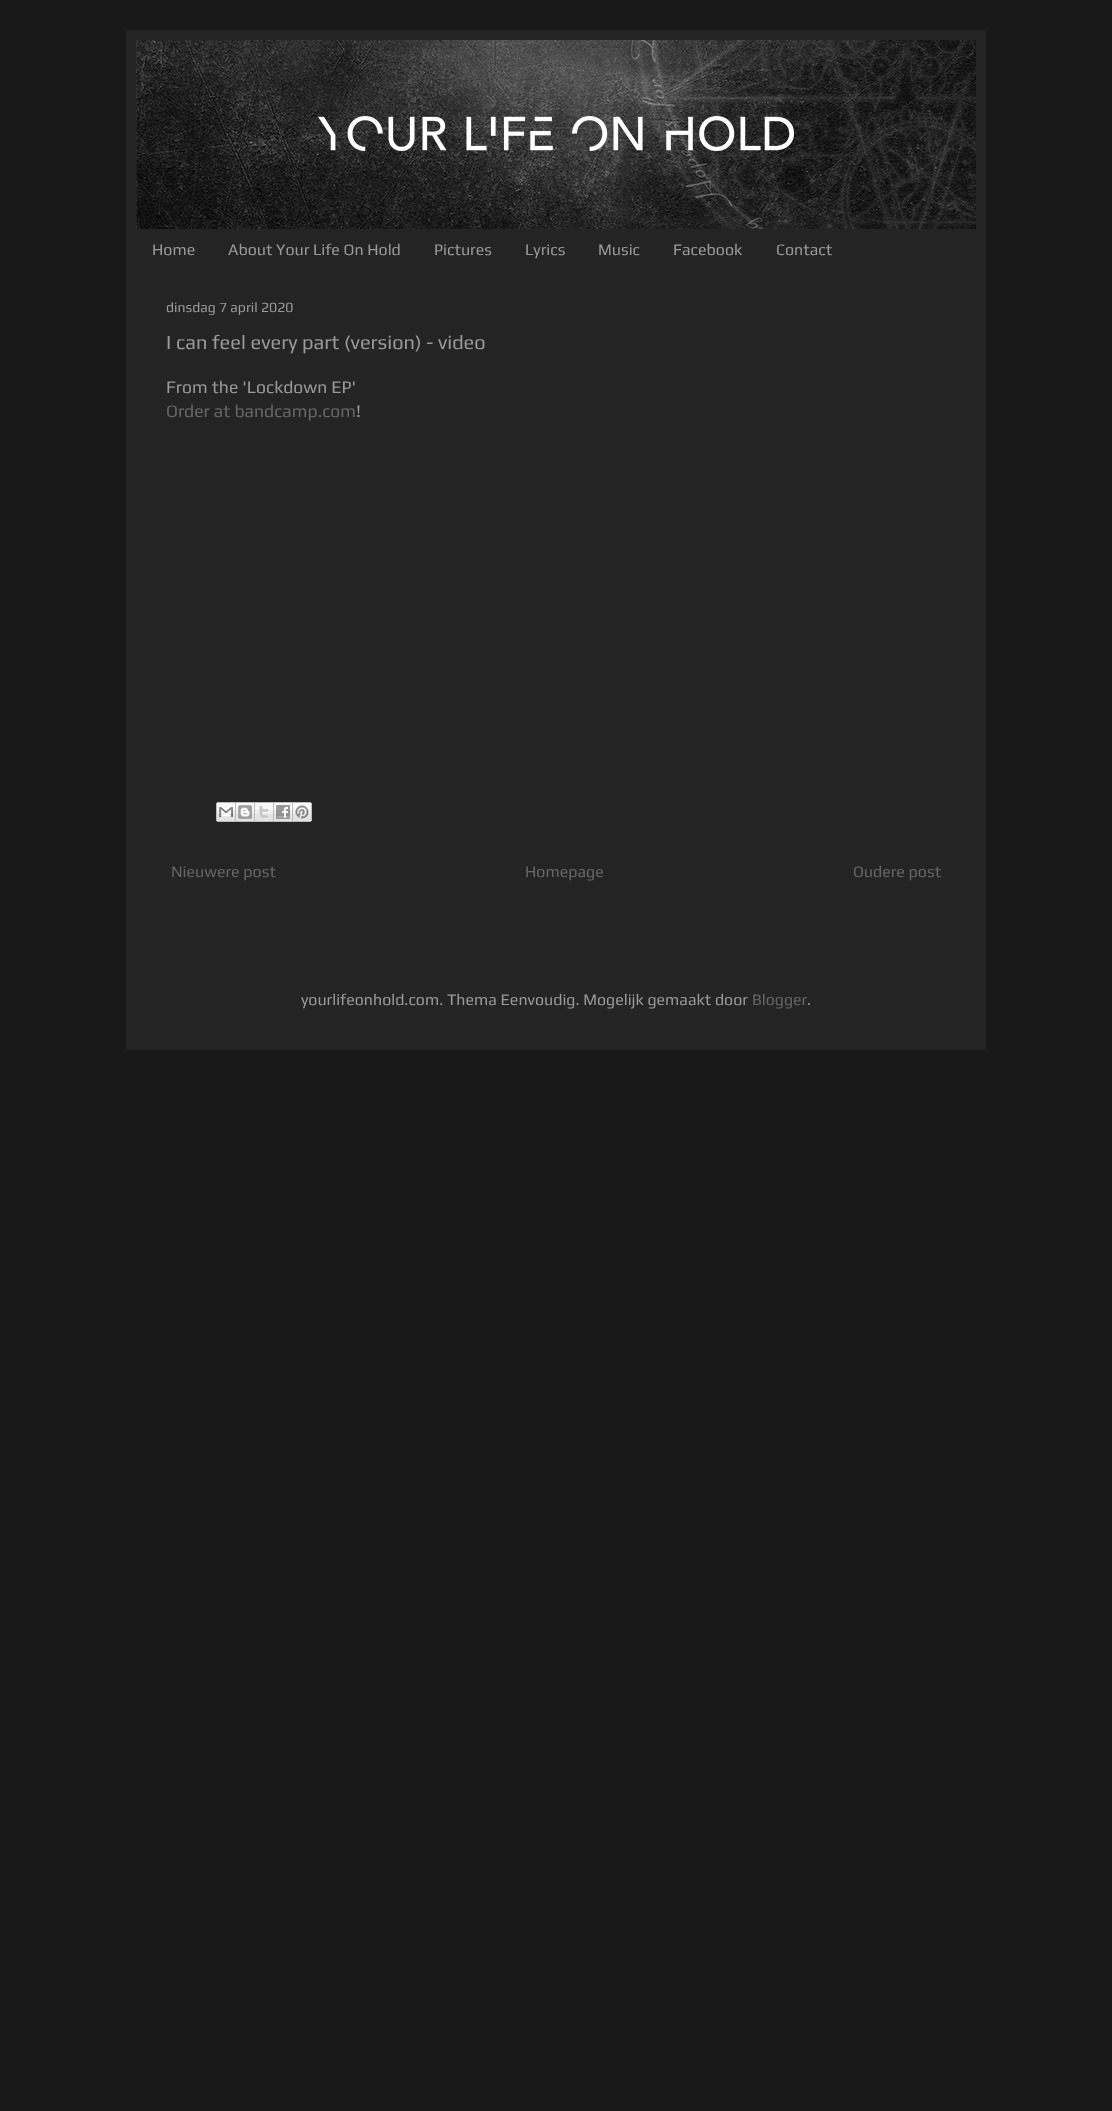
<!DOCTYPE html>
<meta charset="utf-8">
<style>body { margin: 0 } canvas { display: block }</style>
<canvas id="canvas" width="1112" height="2111"></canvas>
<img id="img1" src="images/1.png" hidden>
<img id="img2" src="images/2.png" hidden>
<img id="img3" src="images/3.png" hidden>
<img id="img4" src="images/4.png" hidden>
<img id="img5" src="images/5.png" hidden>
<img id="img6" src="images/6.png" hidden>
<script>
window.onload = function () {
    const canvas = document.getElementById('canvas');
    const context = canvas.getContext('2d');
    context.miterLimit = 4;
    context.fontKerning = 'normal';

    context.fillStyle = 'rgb(25, 25, 25)';
    context.fillRect(0, 0, 1112, 2111);
    context.fillStyle = 'rgb(36, 36, 36)';
    context.fillRect(126, 30, 860, 1020);
    context.drawImage(document.getElementById('img1'), 136, 40, 840, 189);
    context.drawImage(document.getElementById('img2'), 216, 802, 20, 20);
    context.drawImage(document.getElementById('img3'), 236, 802, 19, 20);
    context.drawImage(document.getElementById('img4'), 255, 802, 19, 20);
    context.drawImage(document.getElementById('img5'), 274, 802, 19, 20);
    context.drawImage(document.getElementById('img6'), 293, 802, 19, 20);
    context.font = '16px Play';
    context.fillStyle = 'rgb(153, 153, 153)';
    context.fillText('Home', 152, 255);
    context.fillText('About Your Life On Hold', 228, 255);
    context.fillText('Pictures', 434, 255);
    context.fillText('Lyrics', 525, 255);
    context.fillText('Music', 598, 255);
    context.fillText('Facebook', 673, 255);
    context.fillText('Contact', 776, 255);
    context.font = '14px Play';
    context.fillText('dinsdag 7 april 2020', 166, 312);
    context.font = '20px Play';
    context.fillText('I can feel every part (version) - video', 166, 349);
    context.font = '17.6px Play';
    context.fillText('From the \'Lockdown EP\'', 166, 393);
    context.fillStyle = 'rgb(102, 102, 102)';
    context.fillText('Order at bandcamp.com', 166, 417);
    context.fillStyle = 'rgb(153, 153, 153)';
    context.fillText('!', 356, 417);
    context.font = '16px Play';
    context.fillStyle = 'rgb(102, 102, 102)';
    context.fillText('Nieuwere post', 171, 877);
    context.fillText('Homepage', 525, 877);
    context.fillText('Oudere post', 853, 877);
    context.fillStyle = 'rgb(153, 153, 153)';
    context.fillText('yourlifeonhold.com. Thema Eenvoudig. Mogelijk gemaakt door', 301, 1005);
    context.fillStyle = 'rgb(102, 102, 102)';
    context.fillText('Blogger', 752, 1005);
    context.fillStyle = 'rgb(153, 153, 153)';
    context.fillText('.', 807, 1005);
};
</script>
